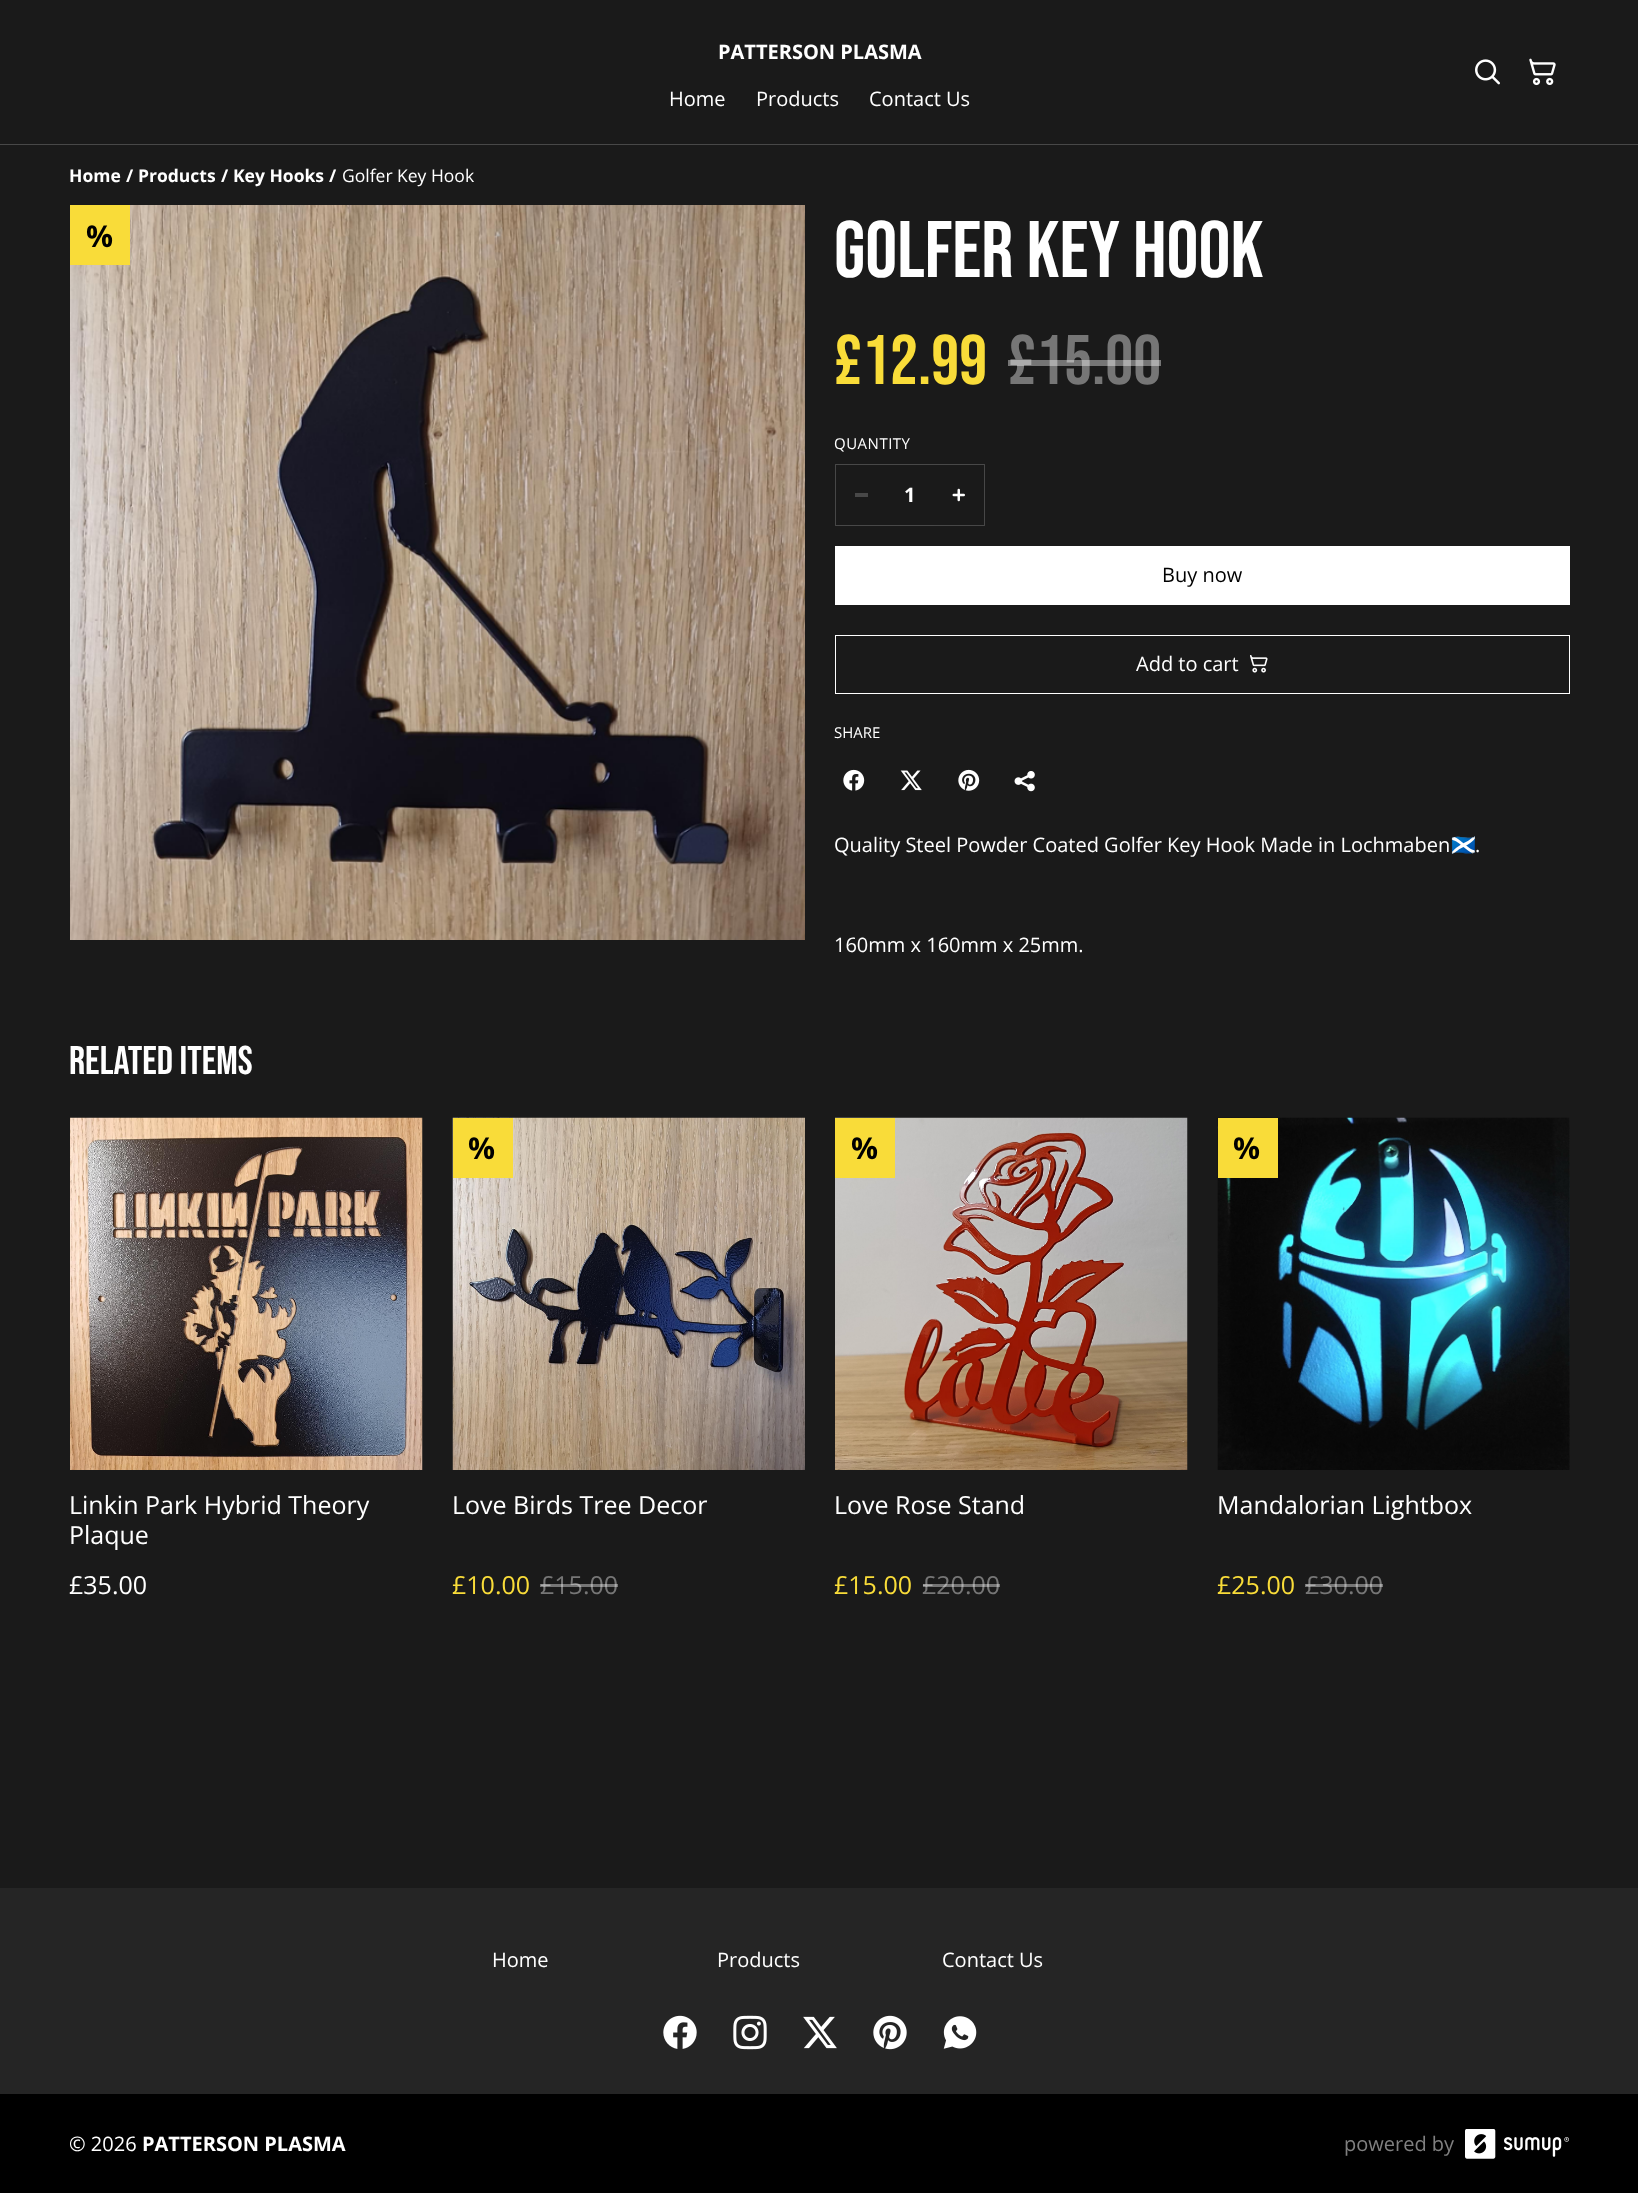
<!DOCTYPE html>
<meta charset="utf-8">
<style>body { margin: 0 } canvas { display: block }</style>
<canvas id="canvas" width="1638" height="2193"></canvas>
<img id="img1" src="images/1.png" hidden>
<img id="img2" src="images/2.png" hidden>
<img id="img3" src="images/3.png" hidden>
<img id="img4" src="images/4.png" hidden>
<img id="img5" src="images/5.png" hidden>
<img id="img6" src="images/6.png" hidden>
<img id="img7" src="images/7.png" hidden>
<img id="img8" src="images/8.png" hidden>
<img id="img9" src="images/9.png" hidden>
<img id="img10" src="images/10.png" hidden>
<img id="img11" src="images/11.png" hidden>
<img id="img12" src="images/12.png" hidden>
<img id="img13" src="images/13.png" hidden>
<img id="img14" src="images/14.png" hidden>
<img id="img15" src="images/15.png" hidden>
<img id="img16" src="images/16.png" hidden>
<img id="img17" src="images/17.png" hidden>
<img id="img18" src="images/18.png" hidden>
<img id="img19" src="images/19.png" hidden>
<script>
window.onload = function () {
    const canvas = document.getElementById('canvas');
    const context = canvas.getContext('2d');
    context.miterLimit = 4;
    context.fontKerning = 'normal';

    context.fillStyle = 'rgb(26, 26, 26)';
    context.fillRect(0, 0, 1638, 2193);
    context.fillStyle = 'rgb(72, 72, 72)';
    context.fillRect(0, 144, 1638, 1);
    context.drawImage(document.getElementById('img1'), 1475, 59, 25, 26);
    context.drawImage(document.getElementById('img2'), 1529, 58, 27, 28);
    context.drawImage(document.getElementById('img3'), 70, 205, 735, 735);
    context.fillStyle = 'rgb(249, 220, 57)';
    context.fillRect(70, 205, 60, 60);
    context.fillStyle = 'rgb(72, 72, 72)';
    context.beginPath();
    context.moveTo(835, 464);
    context.lineTo(886, 464);
    context.lineTo(886, 465);
    context.lineTo(836, 465);
    context.closePath();
    context.moveTo(886, 526);
    context.lineTo(835, 526);
    context.lineTo(836, 525);
    context.lineTo(886, 525);
    context.closePath();
    context.fill();
    context.fillStyle = 'rgba(255, 255, 255, 0.2)';
    context.beginPath();
    context.moveTo(835, 526);
    context.lineTo(835, 464);
    context.lineTo(836, 465);
    context.lineTo(836, 525);
    context.closePath();
    context.fill();
    context.fillStyle = 'rgb(72, 72, 72)';
    context.fillRect(855, 493, 13, 4);
    context.fillRect(886, 464, 48, 1);
    context.fillRect(886, 525, 48, 1);
    context.beginPath();
    context.moveTo(934, 464);
    context.lineTo(985, 464);
    context.lineTo(984, 465);
    context.lineTo(934, 465);
    context.closePath();
    context.fill();
    context.fillStyle = 'rgba(255, 255, 255, 0.2)';
    context.beginPath();
    context.moveTo(985, 464);
    context.lineTo(985, 526);
    context.lineTo(984, 525);
    context.lineTo(984, 465);
    context.closePath();
    context.fill();
    context.beginPath();
    context.moveTo(985, 526);
    context.lineTo(934, 526);
    context.lineTo(934, 525);
    context.lineTo(984, 525);
    context.closePath();
    context.fill();
    context.drawImage(document.getElementById('img4'), 952, 488, 13, 14);
    context.fillStyle = 'rgb(255, 255, 255)';
    context.fillRect(835, 546, 735, 59);
    context.strokeStyle = 'rgb(255, 255, 255)';
    context.strokeRect(835.5, 635.5, 734, 58);
    context.drawImage(document.getElementById('img5'), 1250, 655, 18, 18);
    context.drawImage(document.getElementById('img6'), 843, 769, 22, 22);
    context.drawImage(document.getElementById('img7'), 900, 770, 22, 21);
    context.drawImage(document.getElementById('img8'), 958, 769, 22, 22);
    context.drawImage(document.getElementById('img9'), 1014, 771, 21, 21);
    context.drawImage(document.getElementById('img10'), 70, 1117, 353, 353);
    context.drawImage(document.getElementById('img11'), 452, 1117, 353, 353);
    context.fillStyle = 'rgb(249, 220, 57)';
    context.fillRect(453, 1118, 60, 60);
    context.drawImage(document.getElementById('img12'), 835, 1117, 353, 353);
    context.fillRect(835, 1118, 60, 60);
    context.drawImage(document.getElementById('img13'), 1217, 1117, 353, 353);
    context.fillRect(1218, 1118, 60, 60);
    context.fillStyle = 'rgb(37, 37, 37)';
    context.fillRect(0, 1888, 1638, 206);
    context.drawImage(document.getElementById('img14'), 663, 2015, 34, 34);
    context.drawImage(document.getElementById('img15'), 733, 2015, 34, 35);
    context.drawImage(document.getElementById('img16'), 803, 2016, 34, 33);
    context.drawImage(document.getElementById('img17'), 873, 2015, 34, 35);
    context.drawImage(document.getElementById('img18'), 943, 2016, 34, 33);
    context.fillStyle = 'rgb(0, 0, 0)';
    context.fillRect(0, 2094, 1638, 99);
    context.drawImage(document.getElementById('img19'), 1465, 2129, 104, 30);
    context.font = 'bold 20px Open Sans';
    context.fillStyle = 'rgb(255, 255, 255)';
    context.fillText('PATTERSON PLASMA', 718, 59);
    context.font = '20px Open Sans';
    context.fillText('Home', 669, 106);
    context.fillText('Products', 756, 106);
    context.fillText('Contact Us', 869, 106);
    context.font = 'bold 17.5px Open Sans';
    context.fillText('Home', 69, 182);
    context.fillText('/', 126, 182);
    context.fillText('Products', 138, 182);
    context.fillText('/', 221, 182);
    context.fillText('Key Hooks', 233, 182);
    context.fillText('/', 329, 182);
    context.font = '17.5px Open Sans';
    context.fillText('Golfer Key Hook', 342, 182);
    context.font = 'bold 30px Open Sans';
    context.fillStyle = 'rgb(0, 0, 0)';
    context.fillText('%', 86, 247);
    context.font = '80px Bebas Neue';
    context.fillStyle = 'rgb(255, 255, 255)';
    context.fillText('Golfer Key Hook', 834, 277);
    context.font = '70px Bebas Neue';
    context.fillStyle = 'rgb(249, 220, 57)';
    context.fillText('£12.99', 834, 384);
    context.fillStyle = 'rgb(118, 118, 118)';
    context.fillText('£15.00', 1008, 384);
    context.fillStyle = 'rgba(255, 255, 255, 0.4)';
    context.fillRect(1008, 360, 153, 6);
    context.letterSpacing = '0.5px';
    context.font = '15px Open Sans';
    context.fillStyle = 'rgb(255, 255, 255)';
    context.fillText('QUANTITY', 834, 449);
    context.letterSpacing = '0px';
    context.font = 'bold 20px Open Sans';
    context.fillText('1', 904, 502);
    context.font = '20px Open Sans';
    context.fillStyle = 'rgb(0, 0, 0)';
    context.fillText('Buy now', 1162, 582);
    context.fillStyle = 'rgb(255, 255, 255)';
    context.fillText('Add to cart', 1136, 671);
    context.font = '15px Open Sans';
    context.fillText('SHARE', 834, 738);
    context.font = '20px Open Sans';
    context.fillText('Quality Steel Powder Coated Golfer Key Hook Made in Lochmaben', 834, 852);
    context.font = '20px Noto Color Emoji';
    context.fillText('🏴󠁧󠁢󠁳󠁣󠁴󠁿', 1451, 852);
    context.font = '20px Open Sans';
    context.fillText('.', 1475, 852);
    context.fillText('160mm x 160mm x 25mm.', 834, 952);
    context.font = '40px Bebas Neue';
    context.fillText('Related items', 69, 1074);
    context.font = '25px Open Sans';
    context.fillText('Linkin Park Hybrid Theory', 69, 1514);
    context.fillText('Plaque', 69, 1544);
    context.fillText('£35.00', 69, 1594);
    context.font = 'bold 30px Open Sans';
    context.fillStyle = 'rgb(0, 0, 0)';
    context.fillText('%', 468, 1159);
    context.font = '25px Open Sans';
    context.fillStyle = 'rgb(255, 255, 255)';
    context.fillText('Love Birds Tree Decor', 452, 1514);
    context.fillStyle = 'rgb(249, 220, 57)';
    context.fillText('£10.00', 452, 1594);
    context.fillStyle = 'rgb(118, 118, 118)';
    context.fillText('£15.00', 540, 1594);
    context.fillStyle = 'rgba(255, 255, 255, 0.4)';
    context.fillRect(540, 1584, 78, 3);
    context.font = 'bold 30px Open Sans';
    context.fillStyle = 'rgb(0, 0, 0)';
    context.fillText('%', 851, 1159);
    context.font = '25px Open Sans';
    context.fillStyle = 'rgb(255, 255, 255)';
    context.fillText('Love Rose Stand', 834, 1514);
    context.fillStyle = 'rgb(249, 220, 57)';
    context.fillText('£15.00', 834, 1594);
    context.fillStyle = 'rgb(118, 118, 118)';
    context.fillText('£20.00', 922, 1594);
    context.fillStyle = 'rgba(255, 255, 255, 0.4)';
    context.fillRect(923, 1584, 77, 3);
    context.font = 'bold 30px Open Sans';
    context.fillStyle = 'rgb(0, 0, 0)';
    context.fillText('%', 1233, 1159);
    context.font = '25px Open Sans';
    context.fillStyle = 'rgb(255, 255, 255)';
    context.fillText('Mandalorian Lightbox', 1217, 1514);
    context.fillStyle = 'rgb(249, 220, 57)';
    context.fillText('£25.00', 1217, 1594);
    context.fillStyle = 'rgb(118, 118, 118)';
    context.fillText('£30.00', 1305, 1594);
    context.fillStyle = 'rgba(255, 255, 255, 0.4)';
    context.fillRect(1305, 1584, 78, 3);
    context.font = '20px Open Sans';
    context.fillStyle = 'rgb(255, 255, 255)';
    context.fillText('Home', 492, 1967);
    context.fillText('Products', 717, 1967);
    context.fillText('Contact Us', 942, 1967);
    context.fillText('© 2026', 69, 2151);
    context.font = 'bold 20px Open Sans';
    context.fillText('PATTERSON PLASMA', 142, 2151);
    context.font = '20px Open Sans';
    context.fillStyle = 'rgb(128, 128, 128)';
    context.fillText('powered by', 1344, 2151);
};
</script>
